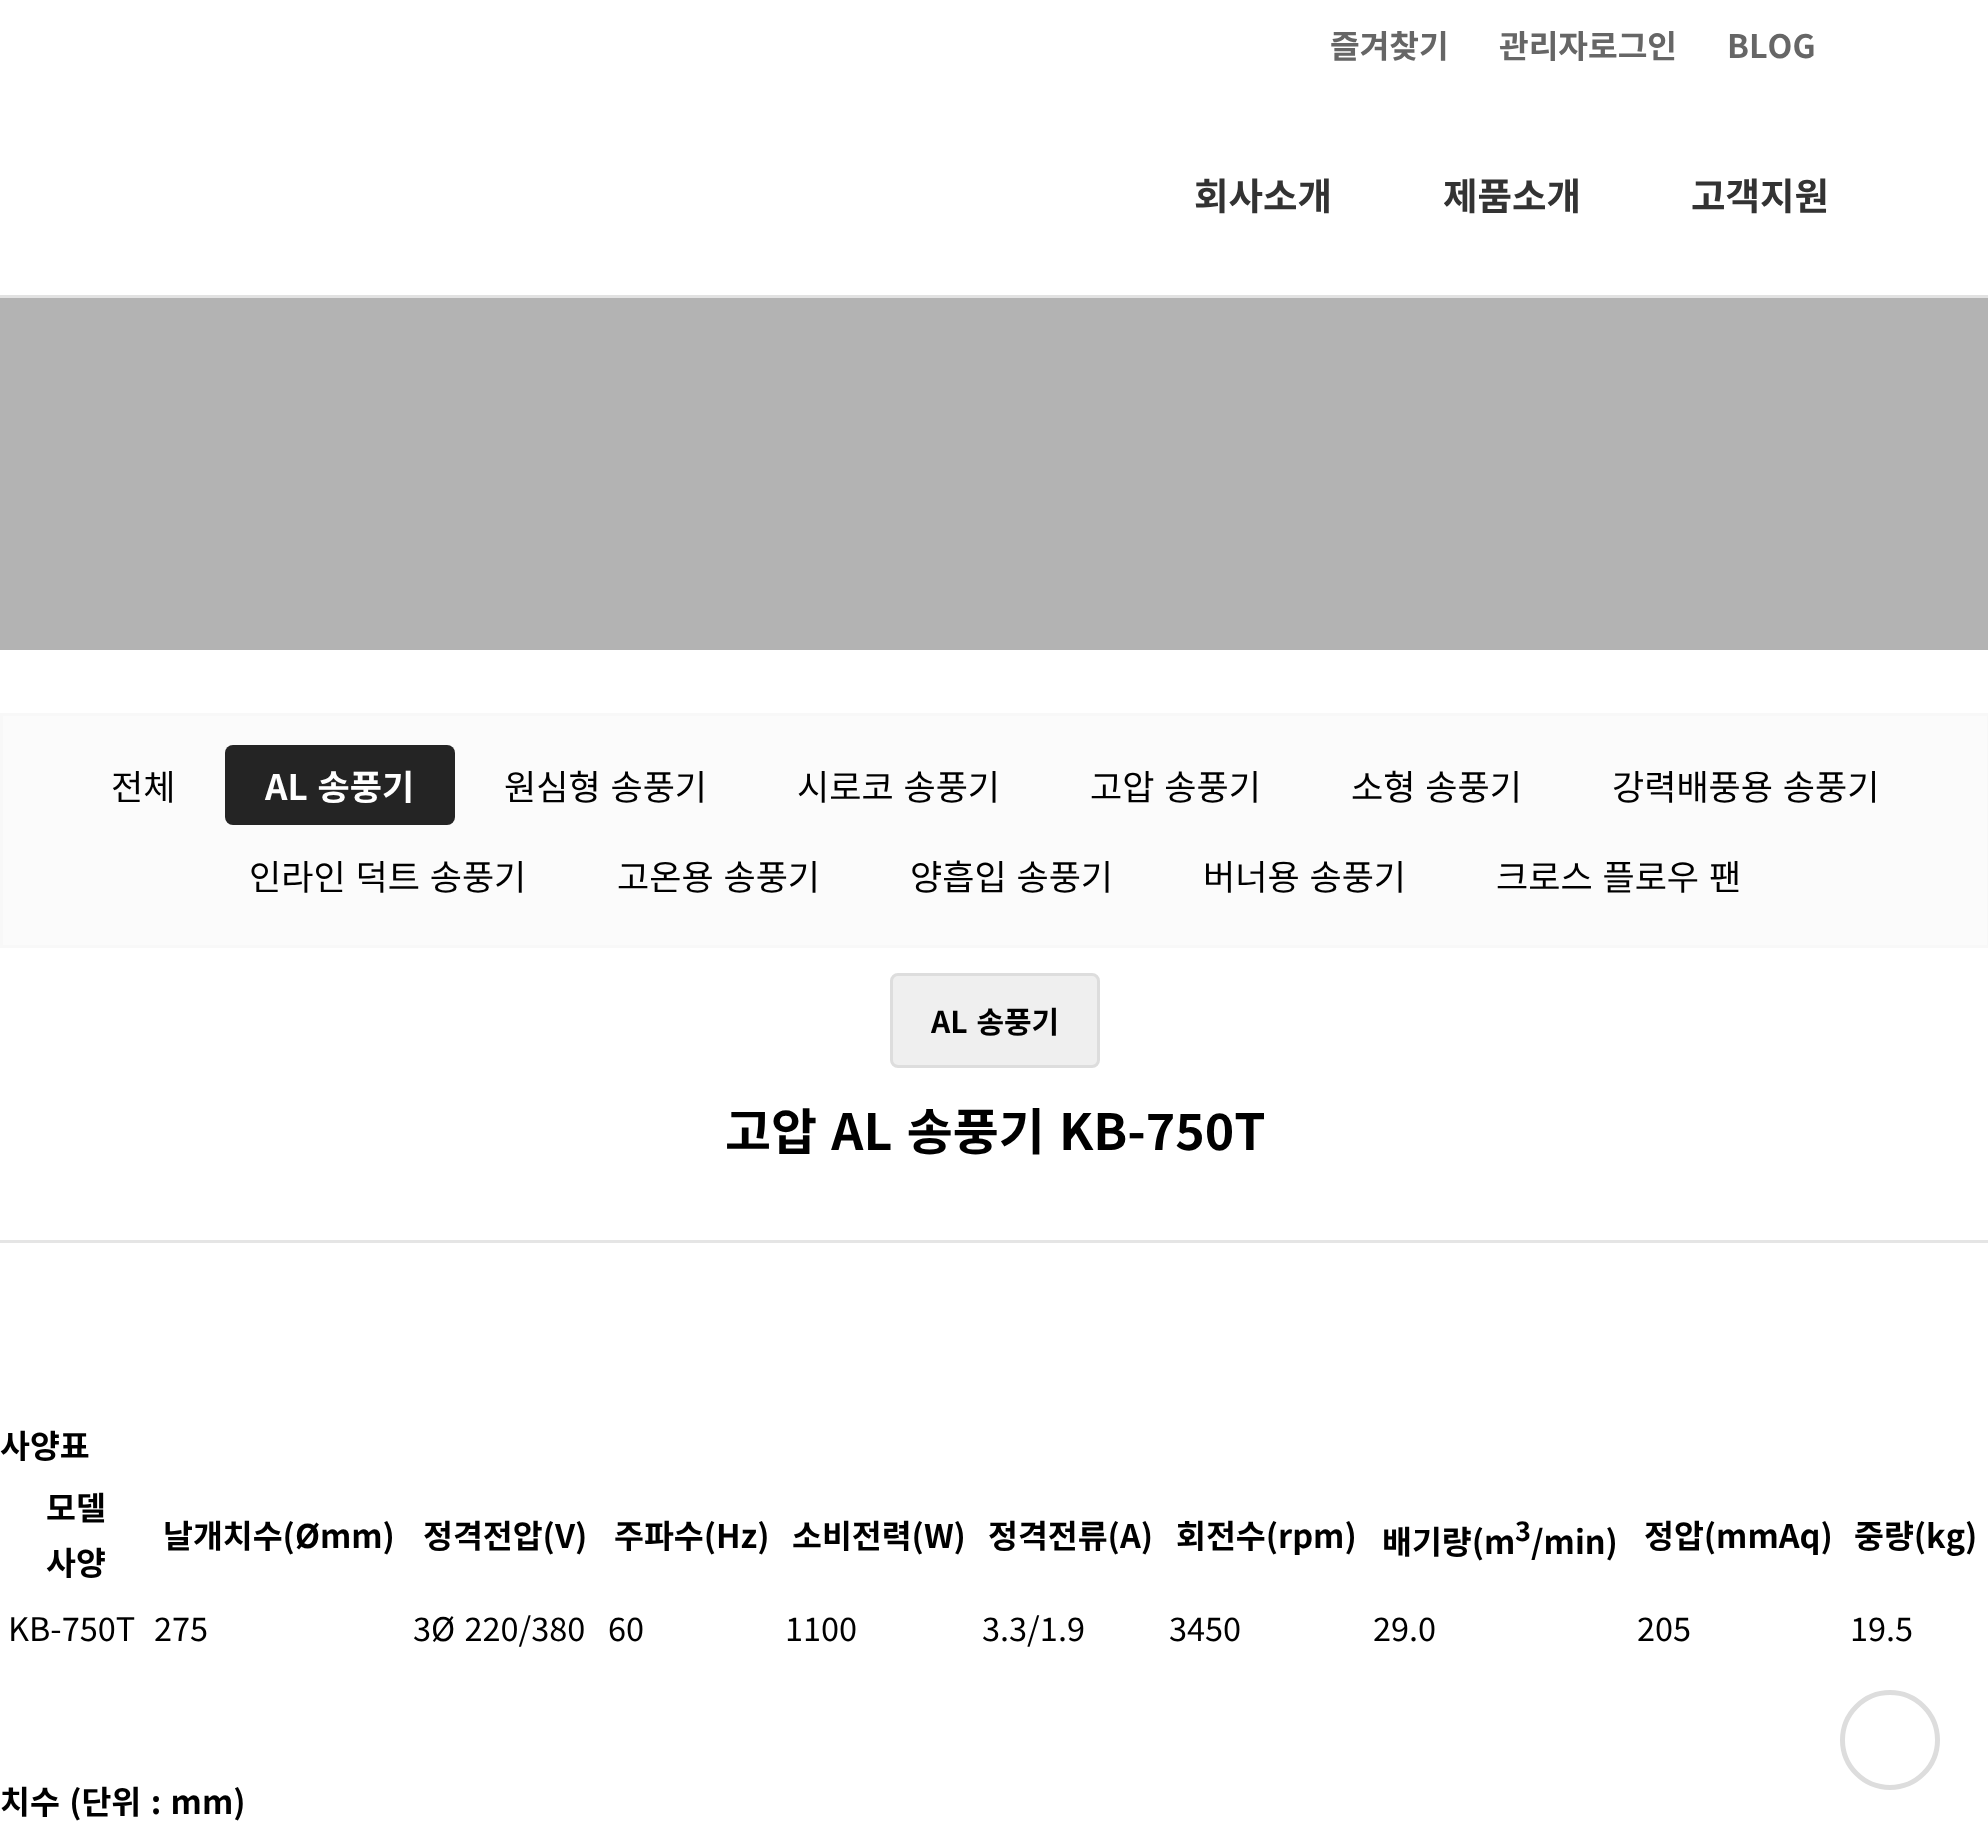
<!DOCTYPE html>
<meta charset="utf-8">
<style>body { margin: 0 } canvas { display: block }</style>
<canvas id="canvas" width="1988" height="1840"></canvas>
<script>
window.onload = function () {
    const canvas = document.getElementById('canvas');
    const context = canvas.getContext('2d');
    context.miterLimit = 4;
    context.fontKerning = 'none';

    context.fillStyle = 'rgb(255, 255, 255)';
    context.fillRect(0, 0, 1988, 1840);
    context.fillStyle = 'rgb(226, 226, 226)';
    context.fillRect(0, 295, 1988, 3);
    context.fillStyle = 'rgb(179, 179, 179)';
    context.fillRect(0, 298, 1988, 352);
    context.fillStyle = 'rgb(251, 251, 251)';
    context.beginPath();
    context.rect(1.5, 714.5, 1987, 232);
    context.fill();
    context.strokeStyle = 'rgb(248, 248, 248)';
    context.lineWidth = 3;
    context.stroke();
    context.fillStyle = 'rgb(36, 36, 36)';
    context.beginPath();
    context.roundRect(225, 745, 230, 80, 8);
    context.fill();
    context.fillStyle = 'rgb(239, 239, 239)';
    context.beginPath();
    context.roundRect(891.5, 974.5, 207, 92, 6.5);
    context.fill();
    context.strokeStyle = 'rgb(221, 221, 221)';
    context.stroke();
    context.fillStyle = 'rgb(229, 229, 229)';
    context.fillRect(0, 1240, 1988, 3);
    context.beginPath();
    context.arc(1890, 1740, 47.5, 0, 2 * Math.PI);
    context.lineWidth = 5;
    context.stroke();
    context.font = 'bold 32.25px Noto Sans KR';
    context.fillStyle = 'rgb(102, 102, 102)';
    context.fillText('즐겨찾기', 1330, 58);
    context.fillText('관리자로그인', 1499, 58);
    context.fillText('BLOG', 1727, 58);
    context.font = 'bold 37.5px Noto Sans KR';
    context.fillStyle = 'rgb(51, 51, 51)';
    context.fillText('회사소개', 1194, 210);
    context.fillText('제품소개', 1443, 210);
    context.fillText('고객지원', 1691, 210);
    context.font = '35px Noto Sans KR';
    context.fillStyle = 'rgb(0, 0, 0)';
    context.fillText('전체', 111, 800);
    context.wordSpacing = '2px';
    context.font = 'bold 35px Noto Sans KR';
    context.fillStyle = 'rgb(255, 255, 255)';
    context.fillText('AL 송풍기', 265, 800);
    context.font = '35px Noto Sans KR';
    context.fillStyle = 'rgb(0, 0, 0)';
    context.fillText('원심형 송풍기', 504, 800);
    context.fillText('시로코 송풍기', 797, 800);
    context.fillText('고압 송풍기', 1090, 800);
    context.fillText('소형 송풍기', 1351, 800);
    context.fillText('강력배풍용 송풍기', 1612, 800);
    context.fillText('인라인 덕트 송풍기', 249, 890);
    context.fillText('고온용 송풍기', 617, 890);
    context.fillText('양흡입 송풍기', 910, 890);
    context.fillText('버너용 송풍기', 1203, 890);
    context.fillText('크로스 플로우 팬', 1496, 890);
    context.font = 'bold 30px Noto Sans KR';
    context.fillText('AL 송풍기', 931, 1033);
    context.wordSpacing = '3px';
    context.font = 'bold 50px Noto Sans KR';
    context.fillText('고압 AL 송풍기 KB-750T', 725, 1150);
    context.wordSpacing = '0px';
    context.font = 'bold 32.5px Noto Sans KR';
    context.fillText('사양표', 0, 1458);
    context.fillText('모델', 46, 1520);
    context.fillText('사양', 46, 1575);
    context.fillText('날개치수(Ømm)', 163, 1548);
    context.fillText('정격전압(V)', 423, 1548);
    context.fillText('주파수(Hz)', 614, 1548);
    context.fillText('소비전력(W)', 792, 1548);
    context.fillText('정격전류(A)', 988, 1548);
    context.fillText('회전수(rpm)', 1176, 1548);
    context.fillText('배기량(m', 1382, 1554);
    context.font = 'bold 27px Noto Sans KR';
    context.fillText('3', 1515, 1541);
    context.font = 'bold 32.5px Noto Sans KR';
    context.fillText('/min)', 1531, 1554);
    context.fillText('정압(mmAq)', 1644, 1548);
    context.fillText('중량(kg)', 1854, 1548);
    context.font = '32.5px Noto Sans KR';
    context.fillText('KB-750T', 8, 1641);
    context.fillText('275', 154, 1641);
    context.wordSpacing = '2px';
    context.fillText('3Ø 220/380', 413, 1641);
    context.wordSpacing = '0px';
    context.fillText('60', 608, 1641);
    context.fillText('1100', 785, 1641);
    context.fillText('3.3/1.9', 982, 1641);
    context.fillText('3450', 1169, 1641);
    context.fillText('29.0', 1373, 1641);
    context.fillText('205', 1637, 1641);
    context.fillText('19.5', 1850, 1641);
    context.wordSpacing = '2px';
    context.font = 'bold 32.5px Noto Sans KR';
    context.fillText('치수 (단위 : mm)', 0, 1814);
};
</script>
